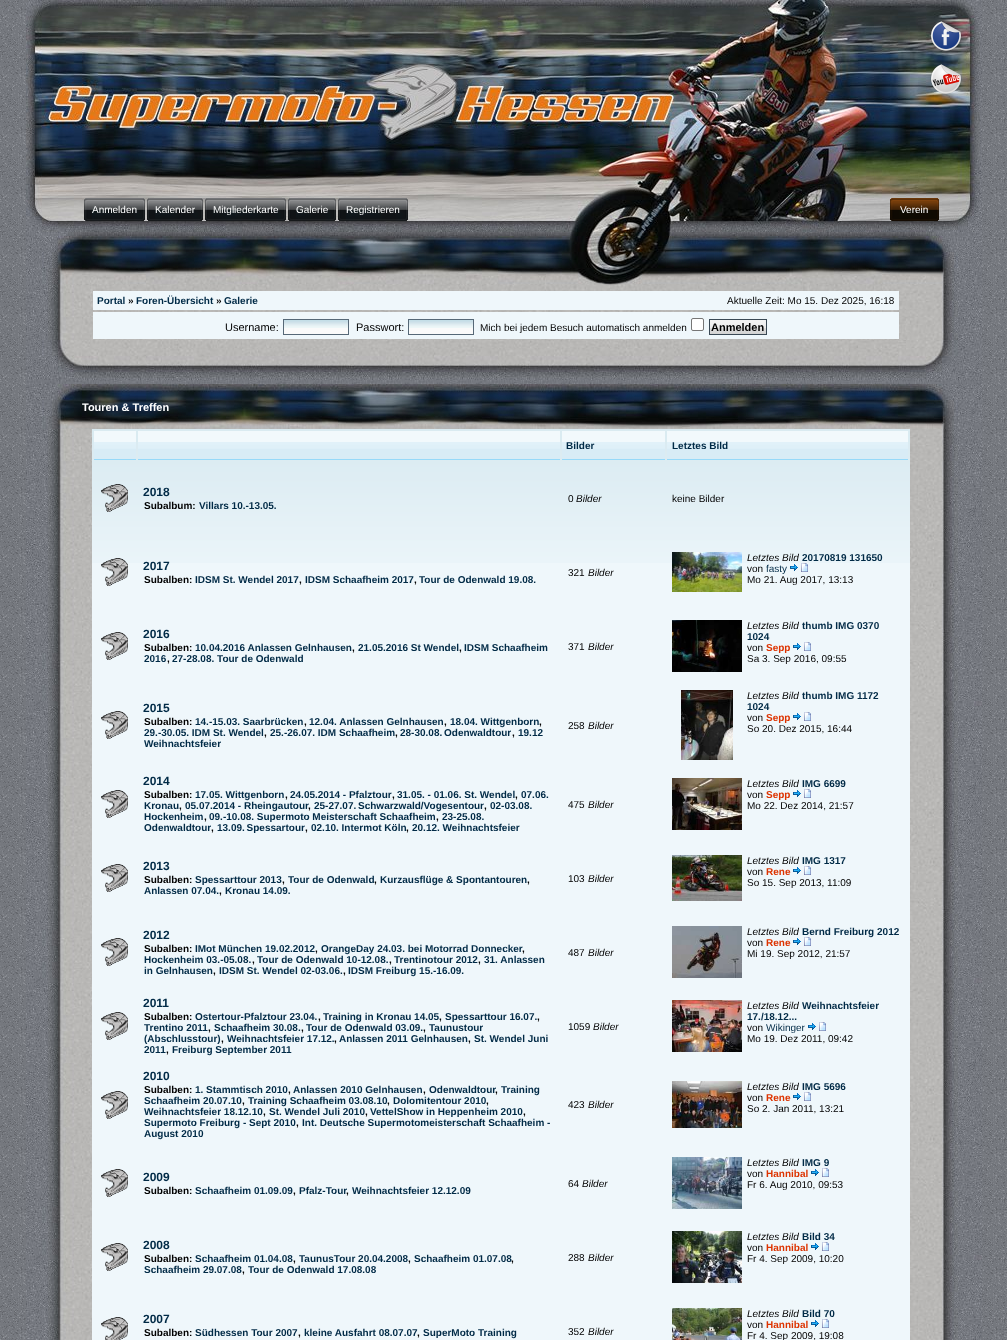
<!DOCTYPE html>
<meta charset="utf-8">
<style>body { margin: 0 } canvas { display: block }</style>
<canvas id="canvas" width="1007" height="1340"></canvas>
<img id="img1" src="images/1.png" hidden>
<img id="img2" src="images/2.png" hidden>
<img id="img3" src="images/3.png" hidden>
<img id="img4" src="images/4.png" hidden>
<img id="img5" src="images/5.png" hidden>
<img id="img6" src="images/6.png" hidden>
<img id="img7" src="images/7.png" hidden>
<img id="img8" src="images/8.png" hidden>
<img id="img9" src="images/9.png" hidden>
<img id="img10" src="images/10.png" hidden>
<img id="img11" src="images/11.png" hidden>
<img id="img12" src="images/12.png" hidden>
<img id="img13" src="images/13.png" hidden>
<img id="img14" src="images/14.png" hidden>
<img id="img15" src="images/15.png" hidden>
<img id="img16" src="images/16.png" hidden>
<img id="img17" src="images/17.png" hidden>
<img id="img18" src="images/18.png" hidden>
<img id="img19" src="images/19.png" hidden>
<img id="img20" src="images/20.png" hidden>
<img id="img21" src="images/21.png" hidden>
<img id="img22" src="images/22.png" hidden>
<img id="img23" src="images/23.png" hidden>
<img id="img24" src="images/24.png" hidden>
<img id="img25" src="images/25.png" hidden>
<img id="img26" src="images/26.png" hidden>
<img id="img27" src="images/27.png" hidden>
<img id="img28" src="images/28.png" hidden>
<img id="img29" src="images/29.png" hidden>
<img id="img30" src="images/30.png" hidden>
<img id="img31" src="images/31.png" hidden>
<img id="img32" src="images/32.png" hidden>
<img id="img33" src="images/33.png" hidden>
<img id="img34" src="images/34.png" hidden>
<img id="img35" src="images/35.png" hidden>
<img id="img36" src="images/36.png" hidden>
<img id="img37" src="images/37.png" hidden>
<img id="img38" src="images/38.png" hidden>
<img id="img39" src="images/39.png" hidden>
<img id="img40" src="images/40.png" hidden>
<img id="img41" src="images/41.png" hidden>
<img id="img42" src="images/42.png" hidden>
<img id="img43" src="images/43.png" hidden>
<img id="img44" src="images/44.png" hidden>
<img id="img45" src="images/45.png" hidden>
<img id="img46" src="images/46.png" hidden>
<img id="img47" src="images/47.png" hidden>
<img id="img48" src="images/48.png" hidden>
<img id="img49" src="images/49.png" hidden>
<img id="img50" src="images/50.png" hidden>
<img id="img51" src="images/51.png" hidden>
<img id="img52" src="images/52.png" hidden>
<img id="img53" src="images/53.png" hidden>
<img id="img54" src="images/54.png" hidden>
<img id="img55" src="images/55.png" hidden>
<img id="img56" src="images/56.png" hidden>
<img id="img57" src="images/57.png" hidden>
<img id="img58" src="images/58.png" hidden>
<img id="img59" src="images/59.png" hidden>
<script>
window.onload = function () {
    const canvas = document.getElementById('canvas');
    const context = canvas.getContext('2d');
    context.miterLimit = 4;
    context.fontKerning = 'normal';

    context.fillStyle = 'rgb(255, 255, 255)';
    context.fillRect(0, 0, 1007, 1340);
    context.drawImage(document.getElementById('img1'), 0, 0, 1007, 1340);
    context.drawImage(document.getElementById('img2'), 26, 0, 56, 184);
    context.drawImage(document.getElementById('img3'), 82, 0, 828, 184);
    context.drawImage(document.getElementById('img4'), 910, 0, 72, 184);
    context.drawImage(document.getElementById('img5'), 930, 21, 32, 30);
    context.drawImage(document.getElementById('img6'), 930, 64, 32, 30);
    context.drawImage(document.getElementById('img7'), 26, 184, 56, 52);
    context.drawImage(document.getElementById('img8'), 82, 184, 828, 52);
    context.drawImage(document.getElementById('img9'), 84, 198, 8, 23);
    context.drawImage(document.getElementById('img10'), 92, 198, 53, 23);
    context.drawImage(document.getElementById('img11'), 147, 198, 8, 23);
    context.drawImage(document.getElementById('img12'), 155, 198, 48, 23);
    context.drawImage(document.getElementById('img13'), 205, 198, 8, 23);
    context.drawImage(document.getElementById('img14'), 213, 198, 73, 23);
    context.drawImage(document.getElementById('img15'), 288, 198, 8, 23);
    context.drawImage(document.getElementById('img16'), 296, 198, 40, 23);
    context.drawImage(document.getElementById('img17'), 338, 198, 8, 23);
    context.drawImage(document.getElementById('img18'), 346, 198, 62, 23);
    context.drawImage(document.getElementById('img19'), 910, 184, 72, 52);
    context.drawImage(document.getElementById('img20'), 890, 198, 9, 23);
    context.drawImage(document.getElementById('img21'), 899, 198, 40, 23);
    context.drawImage(document.getElementById('img22'), 26, 236, 56, 49);
    context.drawImage(document.getElementById('img23'), 82, 236, 828, 49);
    context.drawImage(document.getElementById('img24'), 910, 236, 72, 49);
    context.drawImage(document.getElementById('img25'), 26, 285, 56, 55);
    context.drawImage(document.getElementById('img26'), 82, 285, 828, 55);
    context.fillStyle = 'rgb(239, 247, 251)';
    context.fillRect(93, 291, 806, 19);
    context.fillRect(93, 312, 806, 27);
    context.fillStyle = 'rgb(250, 250, 250)';
    context.fillRect(284, 328, 64, 6);
    context.drawImage(document.getElementById('img27'), 284, 320, 64, 8);
    context.strokeStyle = 'rgb(86, 104, 119)';
    context.strokeRect(283.5, 319.5, 65, 15);
    context.fillRect(409, 328, 64, 6);
    context.drawImage(document.getElementById('img27'), 409, 320, 64, 8);
    context.strokeRect(408.5, 319.5, 65, 15);
    context.fillStyle = 'rgb(255, 255, 255)';
    context.beginPath();
    context.roundRect(691.5, 318.5, 12, 12, 1.5);
    context.fill();
    context.strokeStyle = 'rgb(118, 118, 118)';
    context.stroke();
    context.drawImage(document.getElementById('img28'), 710, 320, 56, 14);
    context.strokeStyle = 'rgb(58, 73, 85)';
    context.strokeRect(709.5, 319.5, 57, 15);
    context.drawImage(document.getElementById('img29'), 910, 285, 72, 55);
    context.drawImage(document.getElementById('img30'), 26, 340, 56, 44);
    context.drawImage(document.getElementById('img31'), 82, 340, 828, 44);
    context.drawImage(document.getElementById('img32'), 910, 340, 72, 44);
    context.drawImage(document.getElementById('img33'), 26, 384, 56, 45);
    context.drawImage(document.getElementById('img34'), 82, 384, 828, 45);
    context.drawImage(document.getElementById('img35'), 910, 384, 72, 45);
    context.drawImage(document.getElementById('img36'), 26, 429, 56, 911);
    context.drawImage(document.getElementById('img37'), 82, 429, 10, 911);
    context.fillStyle = 'rgb(239, 247, 251)';
    context.fillRect(92, 563, 818, 777);
    context.drawImage(document.getElementById('img38'), 92, 429, 818, 134);
    context.fillStyle = 'rgb(216, 236, 246)';
    context.fillRect(94, 449, 42, 10);
    context.drawImage(document.getElementById('img39'), 94, 431, 42, 18);
    context.fillStyle = 'rgb(150, 217, 249)';
    context.fillRect(94, 459, 42, 1);
    context.fillStyle = 'rgb(216, 236, 246)';
    context.fillRect(138, 449, 422, 10);
    context.drawImage(document.getElementById('img40'), 138, 431, 422, 18);
    context.fillStyle = 'rgb(150, 217, 249)';
    context.fillRect(138, 459, 422, 1);
    context.fillStyle = 'rgb(216, 236, 246)';
    context.fillRect(562, 449, 103, 10);
    context.drawImage(document.getElementById('img41'), 562, 431, 103, 18);
    context.fillStyle = 'rgb(150, 217, 249)';
    context.fillRect(562, 459, 103, 1);
    context.fillStyle = 'rgb(216, 236, 246)';
    context.fillRect(667, 449, 241, 10);
    context.drawImage(document.getElementById('img42'), 667, 431, 241, 18);
    context.fillStyle = 'rgb(150, 217, 249)';
    context.fillRect(667, 459, 241, 1);
    context.drawImage(document.getElementById('img43'), 101, 484, 27, 28);
    context.drawImage(document.getElementById('img44'), 101, 558, 27, 28);
    context.drawImage(document.getElementById('img45'), 672, 552, 70, 40);
    context.drawImage(document.getElementById('img46'), 790, 563, 18, 9);
    context.drawImage(document.getElementById('img47'), 101, 632, 27, 28);
    context.drawImage(document.getElementById('img48'), 672, 620, 70, 52);
    context.drawImage(document.getElementById('img46'), 793, 642, 18, 9);
    context.drawImage(document.getElementById('img47'), 101, 711, 27, 28);
    context.drawImage(document.getElementById('img49'), 681, 690, 52, 70);
    context.drawImage(document.getElementById('img46'), 793, 712, 18, 9);
    context.drawImage(document.getElementById('img47'), 101, 790, 27, 28);
    context.drawImage(document.getElementById('img50'), 672, 778, 70, 52);
    context.drawImage(document.getElementById('img46'), 793, 789, 18, 9);
    context.drawImage(document.getElementById('img47'), 101, 864, 27, 28);
    context.drawImage(document.getElementById('img51'), 672, 855, 70, 46);
    context.drawImage(document.getElementById('img46'), 793, 866, 18, 9);
    context.drawImage(document.getElementById('img47'), 101, 938, 27, 28);
    context.drawImage(document.getElementById('img52'), 672, 926, 70, 52);
    context.drawImage(document.getElementById('img47'), 101, 1012, 27, 28);
    context.drawImage(document.getElementById('img53'), 672, 1000, 70, 52);
    context.drawImage(document.getElementById('img46'), 808, 1022, 18, 9);
    context.drawImage(document.getElementById('img47'), 101, 1091, 27, 28);
    context.drawImage(document.getElementById('img54'), 672, 1081, 70, 47);
    context.drawImage(document.getElementById('img46'), 793, 1092, 18, 9);
    context.drawImage(document.getElementById('img47'), 101, 1169, 27, 28);
    context.drawImage(document.getElementById('img55'), 672, 1157, 70, 52);
    context.drawImage(document.getElementById('img46'), 811, 1168, 18, 9);
    context.drawImage(document.getElementById('img47'), 101, 1243, 27, 28);
    context.drawImage(document.getElementById('img56'), 672, 1231, 70, 52);
    context.drawImage(document.getElementById('img46'), 811, 1242, 18, 9);
    context.drawImage(document.getElementById('img57'), 101, 1317, 27, 23);
    context.drawImage(document.getElementById('img58'), 672, 1308, 70, 32);
    context.drawImage(document.getElementById('img46'), 811, 1319, 18, 9);
    context.drawImage(document.getElementById('img59'), 910, 429, 72, 911);
    context.font = '10px Liberation Sans';
    context.fillStyle = 'rgb(255, 255, 255)';
    context.fillText('Anmelden', 92, 213);
    context.fillText('Kalender', 155, 213);
    context.fillText('Mitgliederkarte', 213, 213);
    context.fillText('Galerie', 296, 213);
    context.fillText('Registrieren', 346, 213);
    context.fillText('Verein', 900, 213);
    context.font = 'bold 10px Liberation Sans';
    context.fillStyle = 'rgb(0, 42, 70)';
    context.fillText('Portal', 97, 304);
    context.fillStyle = 'rgb(0, 0, 0)';
    context.fillText('»', 128, 304);
    context.fillStyle = 'rgb(0, 42, 70)';
    context.fillText('Foren-Übersicht', 136, 304);
    context.fillStyle = 'rgb(0, 0, 0)';
    context.fillText('»', 216, 304);
    context.fillStyle = 'rgb(0, 42, 70)';
    context.fillText('Galerie', 224, 304);
    context.font = '10px Liberation Sans';
    context.fillStyle = 'rgb(0, 0, 0)';
    context.fillText('Aktuelle Zeit: Mo 15. Dez 2025, 16:18', 727, 304);
    context.font = '11px Liberation Sans';
    context.fillText('Username:', 225, 331);
    context.fillText('Passwort:', 356, 331);
    context.font = '10px Liberation Sans';
    context.fillText('Mich bei jedem Besuch automatisch anmelden', 480, 331);
    context.font = 'bold 11px Liberation Sans';
    context.fillText('Anmelden', 711, 331);
    context.fillStyle = 'rgb(255, 255, 255)';
    context.fillText('Touren & Treffen', 82, 411);
    context.font = 'bold 10px Liberation Sans';
    context.fillStyle = 'rgb(0, 42, 70)';
    context.fillText('Bilder', 566, 449);
    context.fillText('Letztes Bild', 672, 449);
    context.font = 'bold 12px Liberation Sans';
    context.fillText('2018', 143, 496);
    context.font = 'bold 10px Liberation Sans';
    context.fillStyle = 'rgb(0, 0, 0)';
    context.fillText('Subalbum:', 144, 509);
    context.fillStyle = 'rgb(0, 42, 70)';
    context.fillText('Villars 10.-13.05.', 199, 509);
    context.font = '10px Liberation Sans';
    context.fillStyle = 'rgb(0, 0, 0)';
    context.fillText('0', 568, 502);
    context.font = 'italic 10px Liberation Sans';
    context.fillText('Bilder', 576, 502);
    context.font = '10px Liberation Sans';
    context.fillText('keine Bilder', 672, 502);
    context.font = 'bold 12px Liberation Sans';
    context.fillStyle = 'rgb(0, 42, 70)';
    context.fillText('2017', 143, 570);
    context.font = 'bold 10px Liberation Sans';
    context.fillStyle = 'rgb(0, 0, 0)';
    context.fillText('Subalben:', 144, 583);
    context.fillStyle = 'rgb(0, 42, 70)';
    context.fillText('IDSM St. Wendel 2017', 195, 583);
    context.fillStyle = 'rgb(0, 0, 0)';
    context.fillText(',', 299, 583);
    context.fillStyle = 'rgb(0, 42, 70)';
    context.fillText('IDSM Schaafheim 2017', 305, 583);
    context.fillStyle = 'rgb(0, 0, 0)';
    context.fillText(',', 414, 583);
    context.fillStyle = 'rgb(0, 42, 70)';
    context.fillText('Tour de Odenwald 19.08.', 419, 583);
    context.font = '10px Liberation Sans';
    context.fillStyle = 'rgb(0, 0, 0)';
    context.fillText('321', 568, 576);
    context.font = 'italic 10px Liberation Sans';
    context.fillText('Bilder', 588, 576);
    context.fillText('Letztes Bild', 747, 561);
    context.font = 'bold 10px Liberation Sans';
    context.fillStyle = 'rgb(0, 42, 70)';
    context.fillText('20170819 131650', 802, 561);
    context.font = '10px Liberation Sans';
    context.fillStyle = 'rgb(0, 0, 0)';
    context.fillText('von', 747, 572);
    context.fillStyle = 'rgb(0, 42, 70)';
    context.fillText('fasty', 766, 572);
    context.fillStyle = 'rgb(0, 0, 0)';
    context.fillText('Mo 21. Aug 2017, 13:13', 747, 583);
    context.font = 'bold 12px Liberation Sans';
    context.fillStyle = 'rgb(0, 42, 70)';
    context.fillText('2016', 143, 638);
    context.font = 'bold 10px Liberation Sans';
    context.fillStyle = 'rgb(0, 0, 0)';
    context.fillText('Subalben:', 144, 651);
    context.fillStyle = 'rgb(0, 42, 70)';
    context.fillText('10.04.2016 Anlassen Gelnhausen', 195, 651);
    context.fillStyle = 'rgb(0, 0, 0)';
    context.fillText(',', 352, 651);
    context.fillStyle = 'rgb(0, 42, 70)';
    context.fillText('21.05.2016 St Wendel', 358, 651);
    context.fillStyle = 'rgb(0, 0, 0)';
    context.fillText(',', 459, 651);
    context.fillStyle = 'rgb(0, 42, 70)';
    context.fillText('IDSM Schaafheim', 464, 651);
    context.fillText('2016', 144, 662);
    context.fillStyle = 'rgb(0, 0, 0)';
    context.fillText(',', 167, 662);
    context.fillStyle = 'rgb(0, 42, 70)';
    context.fillText('27-28.08. Tour de Odenwald', 172, 662);
    context.font = '10px Liberation Sans';
    context.fillStyle = 'rgb(0, 0, 0)';
    context.fillText('371', 568, 650);
    context.font = 'italic 10px Liberation Sans';
    context.fillText('Bilder', 588, 650);
    context.fillText('Letztes Bild', 747, 629);
    context.font = 'bold 10px Liberation Sans';
    context.fillStyle = 'rgb(0, 42, 70)';
    context.fillText('thumb IMG 0370', 802, 629);
    context.fillText('1024', 747, 640);
    context.font = '10px Liberation Sans';
    context.fillStyle = 'rgb(0, 0, 0)';
    context.fillText('von', 747, 651);
    context.font = 'bold 10px Liberation Sans';
    context.fillStyle = 'rgb(221, 51, 0)';
    context.fillText('Sepp', 766, 651);
    context.font = '10px Liberation Sans';
    context.fillStyle = 'rgb(0, 0, 0)';
    context.fillText('Sa 3. Sep 2016, 09:55', 747, 662);
    context.font = 'bold 12px Liberation Sans';
    context.fillStyle = 'rgb(0, 42, 70)';
    context.fillText('2015', 143, 712);
    context.font = 'bold 10px Liberation Sans';
    context.fillStyle = 'rgb(0, 0, 0)';
    context.fillText('Subalben:', 144, 725);
    context.fillStyle = 'rgb(0, 42, 70)';
    context.fillText('14.-15.03. Saarbrücken', 195, 725);
    context.fillStyle = 'rgb(0, 0, 0)';
    context.fillText(',', 304, 725);
    context.fillStyle = 'rgb(0, 42, 70)';
    context.fillText('12.04. Anlassen Gelnhausen', 309, 725);
    context.fillStyle = 'rgb(0, 0, 0)';
    context.fillText(',', 444, 725);
    context.fillStyle = 'rgb(0, 42, 70)';
    context.fillText('18.04. Wittgenborn', 450, 725);
    context.fillStyle = 'rgb(0, 0, 0)';
    context.fillText(',', 539, 725);
    context.fillStyle = 'rgb(0, 42, 70)';
    context.fillText('29.-30.05. IDM St. Wendel', 144, 736);
    context.fillStyle = 'rgb(0, 0, 0)';
    context.fillText(',', 264, 736);
    context.fillStyle = 'rgb(0, 42, 70)';
    context.fillText('25.-26.07. IDM Schaafheim', 270, 736);
    context.fillStyle = 'rgb(0, 0, 0)';
    context.fillText(',', 395, 736);
    context.wordSpacing = '-1px';
    context.fillStyle = 'rgb(0, 42, 70)';
    context.fillText('28-30.08. Odenwaldtour', 400, 736);
    context.wordSpacing = '0px';
    context.fillStyle = 'rgb(0, 0, 0)';
    context.fillText(',', 512, 736);
    context.fillStyle = 'rgb(0, 42, 70)';
    context.fillText('19.12', 518, 736);
    context.fillText('Weihnachtsfeier', 144, 747);
    context.font = '10px Liberation Sans';
    context.fillStyle = 'rgb(0, 0, 0)';
    context.fillText('258', 568, 729);
    context.font = 'italic 10px Liberation Sans';
    context.fillText('Bilder', 588, 729);
    context.fillText('Letztes Bild', 747, 699);
    context.font = 'bold 10px Liberation Sans';
    context.fillStyle = 'rgb(0, 42, 70)';
    context.fillText('thumb IMG 1172', 802, 699);
    context.fillText('1024', 747, 710);
    context.font = '10px Liberation Sans';
    context.fillStyle = 'rgb(0, 0, 0)';
    context.fillText('von', 747, 721);
    context.font = 'bold 10px Liberation Sans';
    context.fillStyle = 'rgb(221, 51, 0)';
    context.fillText('Sepp', 766, 721);
    context.font = '10px Liberation Sans';
    context.fillStyle = 'rgb(0, 0, 0)';
    context.fillText('So 20. Dez 2015, 16:44', 747, 732);
    context.font = 'bold 12px Liberation Sans';
    context.fillStyle = 'rgb(0, 42, 70)';
    context.fillText('2014', 143, 785);
    context.font = 'bold 10px Liberation Sans';
    context.fillStyle = 'rgb(0, 0, 0)';
    context.fillText('Subalben:', 144, 798);
    context.fillStyle = 'rgb(0, 42, 70)';
    context.fillText('17.05. Wittgenborn', 195, 798);
    context.fillStyle = 'rgb(0, 0, 0)';
    context.fillText(',', 285, 798);
    context.fillStyle = 'rgb(0, 42, 70)';
    context.fillText('24.05.2014 - Pfalztour', 290, 798);
    context.fillStyle = 'rgb(0, 0, 0)';
    context.fillText(',', 392, 798);
    context.fillStyle = 'rgb(0, 42, 70)';
    context.fillText('31.05. - 01.06. St. Wendel', 397, 798);
    context.fillStyle = 'rgb(0, 0, 0)';
    context.fillText(',', 515, 798);
    context.fillStyle = 'rgb(0, 42, 70)';
    context.fillText('07.06.', 521, 798);
    context.fillText('Kronau', 144, 809);
    context.fillStyle = 'rgb(0, 0, 0)';
    context.fillText(',', 179, 809);
    context.fillStyle = 'rgb(0, 42, 70)';
    context.fillText('05.07.2014 - Rheingautour', 185, 809);
    context.fillStyle = 'rgb(0, 0, 0)';
    context.fillText(',', 308, 809);
    context.wordSpacing = '-1px';
    context.fillStyle = 'rgb(0, 42, 70)';
    context.fillText('25-27.07. Schwarzwald/Vogesentour', 314, 809);
    context.wordSpacing = '0px';
    context.fillStyle = 'rgb(0, 0, 0)';
    context.fillText(',', 484, 809);
    context.fillStyle = 'rgb(0, 42, 70)';
    context.fillText('02-03.08.', 490, 809);
    context.fillText('Hockenheim', 144, 820);
    context.fillStyle = 'rgb(0, 0, 0)';
    context.fillText(',', 204, 820);
    context.fillStyle = 'rgb(0, 42, 70)';
    context.fillText('09.-10.08. Supermoto Meisterschaft Schaafheim', 209, 820);
    context.fillStyle = 'rgb(0, 0, 0)';
    context.fillText(',', 436, 820);
    context.fillStyle = 'rgb(0, 42, 70)';
    context.fillText('23-25.08.', 442, 820);
    context.fillText('Odenwaldtour', 144, 831);
    context.fillStyle = 'rgb(0, 0, 0)';
    context.fillText(',', 211, 831);
    context.wordSpacing = '-1px';
    context.fillStyle = 'rgb(0, 42, 70)';
    context.fillText('13.09. Spessartour', 217, 831);
    context.wordSpacing = '0px';
    context.fillStyle = 'rgb(0, 0, 0)';
    context.fillText(',', 305, 831);
    context.fillStyle = 'rgb(0, 42, 70)';
    context.fillText('02.10. Intermot Köln', 311, 831);
    context.fillStyle = 'rgb(0, 0, 0)';
    context.fillText(',', 406, 831);
    context.fillStyle = 'rgb(0, 42, 70)';
    context.fillText('20.12. Weihnachtsfeier', 412, 831);
    context.font = '10px Liberation Sans';
    context.fillStyle = 'rgb(0, 0, 0)';
    context.fillText('475', 568, 808);
    context.font = 'italic 10px Liberation Sans';
    context.fillText('Bilder', 588, 808);
    context.fillText('Letztes Bild', 747, 787);
    context.font = 'bold 10px Liberation Sans';
    context.fillStyle = 'rgb(0, 42, 70)';
    context.fillText('IMG 6699', 802, 787);
    context.font = '10px Liberation Sans';
    context.fillStyle = 'rgb(0, 0, 0)';
    context.fillText('von', 747, 798);
    context.font = 'bold 10px Liberation Sans';
    context.fillStyle = 'rgb(221, 51, 0)';
    context.fillText('Sepp', 766, 798);
    context.font = '10px Liberation Sans';
    context.fillStyle = 'rgb(0, 0, 0)';
    context.fillText('Mo 22. Dez 2014, 21:57', 747, 809);
    context.font = 'bold 12px Liberation Sans';
    context.fillStyle = 'rgb(0, 42, 70)';
    context.fillText('2013', 143, 870);
    context.font = 'bold 10px Liberation Sans';
    context.fillStyle = 'rgb(0, 0, 0)';
    context.fillText('Subalben:', 144, 883);
    context.fillStyle = 'rgb(0, 42, 70)';
    context.fillText('Spessarttour 2013', 195, 883);
    context.fillStyle = 'rgb(0, 0, 0)';
    context.fillText(',', 282, 883);
    context.fillStyle = 'rgb(0, 42, 70)';
    context.fillText('Tour de Odenwald', 288, 883);
    context.fillStyle = 'rgb(0, 0, 0)';
    context.fillText(',', 374, 883);
    context.fillStyle = 'rgb(0, 42, 70)';
    context.fillText('Kurzausflüge & Spontantouren', 380, 883);
    context.fillStyle = 'rgb(0, 0, 0)';
    context.fillText(',', 527, 883);
    context.fillStyle = 'rgb(0, 42, 70)';
    context.fillText('Anlassen 07.04.', 144, 894);
    context.fillStyle = 'rgb(0, 0, 0)';
    context.fillText(',', 219, 894);
    context.fillStyle = 'rgb(0, 42, 70)';
    context.fillText('Kronau 14.09.', 225, 894);
    context.font = '10px Liberation Sans';
    context.fillStyle = 'rgb(0, 0, 0)';
    context.fillText('103', 568, 882);
    context.font = 'italic 10px Liberation Sans';
    context.fillText('Bilder', 588, 882);
    context.fillText('Letztes Bild', 747, 864);
    context.font = 'bold 10px Liberation Sans';
    context.fillStyle = 'rgb(0, 42, 70)';
    context.fillText('IMG 1317', 802, 864);
    context.font = '10px Liberation Sans';
    context.fillStyle = 'rgb(0, 0, 0)';
    context.fillText('von', 747, 875);
    context.font = 'bold 10px Liberation Sans';
    context.fillStyle = 'rgb(221, 51, 0)';
    context.fillText('Rene', 766, 875);
    context.font = '10px Liberation Sans';
    context.fillStyle = 'rgb(0, 0, 0)';
    context.fillText('So 15. Sep 2013, 11:09', 747, 886);
    context.font = 'bold 12px Liberation Sans';
    context.fillStyle = 'rgb(0, 42, 70)';
    context.fillText('2012', 143, 939);
    context.font = 'bold 10px Liberation Sans';
    context.fillStyle = 'rgb(0, 0, 0)';
    context.fillText('Subalben:', 144, 952);
    context.fillStyle = 'rgb(0, 42, 70)';
    context.fillText('IMot München 19.02.2012', 195, 952);
    context.fillStyle = 'rgb(0, 0, 0)';
    context.fillText(',', 315, 952);
    context.fillStyle = 'rgb(0, 42, 70)';
    context.fillText('OrangeDay 24.03. bei Motorrad Donnecker', 321, 952);
    context.fillStyle = 'rgb(0, 0, 0)';
    context.fillText(',', 522, 952);
    context.fillStyle = 'rgb(0, 42, 70)';
    context.fillText('Hockenheim 03.-05.08.', 144, 963);
    context.fillStyle = 'rgb(0, 0, 0)';
    context.fillText(',', 252, 963);
    context.fillStyle = 'rgb(0, 42, 70)';
    context.fillText('Tour de Odenwald 10-12.08.', 257, 963);
    context.fillStyle = 'rgb(0, 0, 0)';
    context.fillText(',', 389, 963);
    context.fillStyle = 'rgb(0, 42, 70)';
    context.fillText('Trentinotour 2012', 394, 963);
    context.fillStyle = 'rgb(0, 0, 0)';
    context.fillText(',', 478, 963);
    context.fillStyle = 'rgb(0, 42, 70)';
    context.fillText('31. Anlassen', 484, 963);
    context.fillText('in Gelnhausen', 144, 974);
    context.fillStyle = 'rgb(0, 0, 0)';
    context.fillText(',', 213, 974);
    context.fillStyle = 'rgb(0, 42, 70)';
    context.fillText('IDSM St. Wendel 02-03.06.', 219, 974);
    context.fillStyle = 'rgb(0, 0, 0)';
    context.fillText(',', 343, 974);
    context.fillStyle = 'rgb(0, 42, 70)';
    context.fillText('IDSM Freiburg 15.-16.09.', 348, 974);
    context.font = '10px Liberation Sans';
    context.fillStyle = 'rgb(0, 0, 0)';
    context.fillText('487', 568, 956);
    context.font = 'italic 10px Liberation Sans';
    context.fillText('Bilder', 588, 956);
    context.fillText('Letztes Bild', 747, 935);
    context.font = 'bold 10px Liberation Sans';
    context.fillStyle = 'rgb(0, 42, 70)';
    context.fillText('Bernd Freiburg 2012', 802, 935);
    context.font = '10px Liberation Sans';
    context.fillStyle = 'rgb(0, 0, 0)';
    context.fillText('von', 747, 946);
    context.font = 'bold 10px Liberation Sans';
    context.fillStyle = 'rgb(221, 51, 0)';
    context.fillText('Rene', 766, 946);
    context.drawImage(document.getElementById('img46'), 793, 937, 18, 9);
    context.font = '10px Liberation Sans';
    context.fillStyle = 'rgb(0, 0, 0)';
    context.fillText('Mi 19. Sep 2012, 21:57', 747, 957);
    context.font = 'bold 12px Liberation Sans';
    context.fillStyle = 'rgb(0, 42, 70)';
    context.fillText('2011', 143, 1007);
    context.font = 'bold 10px Liberation Sans';
    context.fillStyle = 'rgb(0, 0, 0)';
    context.fillText('Subalben:', 144, 1020);
    context.fillStyle = 'rgb(0, 42, 70)';
    context.fillText('Ostertour-Pfalztour 23.04.', 195, 1020);
    context.fillStyle = 'rgb(0, 0, 0)';
    context.fillText(',', 318, 1020);
    context.fillStyle = 'rgb(0, 42, 70)';
    context.fillText('Training in Kronau 14.05', 323, 1020);
    context.fillStyle = 'rgb(0, 0, 0)';
    context.fillText(',', 439, 1020);
    context.fillStyle = 'rgb(0, 42, 70)';
    context.fillText('Spessarttour 16.07.', 445, 1020);
    context.fillStyle = 'rgb(0, 0, 0)';
    context.fillText(',', 537, 1020);
    context.fillStyle = 'rgb(0, 42, 70)';
    context.fillText('Trentino 2011', 144, 1031);
    context.fillStyle = 'rgb(0, 0, 0)';
    context.fillText(',', 208, 1031);
    context.fillStyle = 'rgb(0, 42, 70)';
    context.fillText('Schaafheim 30.08.', 214, 1031);
    context.fillStyle = 'rgb(0, 0, 0)';
    context.fillText(',', 301, 1031);
    context.fillStyle = 'rgb(0, 42, 70)';
    context.fillText('Tour de Odenwald 03.09.', 306, 1031);
    context.fillStyle = 'rgb(0, 0, 0)';
    context.fillText(',', 423, 1031);
    context.fillStyle = 'rgb(0, 42, 70)';
    context.fillText('Taunustour', 429, 1031);
    context.fillText('(Abschlusstour)', 144, 1042);
    context.fillStyle = 'rgb(0, 0, 0)';
    context.fillText(',', 221, 1042);
    context.fillStyle = 'rgb(0, 42, 70)';
    context.fillText('Weihnachtsfeier 17.12.', 227, 1042);
    context.fillStyle = 'rgb(0, 0, 0)';
    context.fillText(',', 334, 1042);
    context.fillStyle = 'rgb(0, 42, 70)';
    context.fillText('Anlassen 2011 Gelnhausen', 339, 1042);
    context.fillStyle = 'rgb(0, 0, 0)';
    context.fillText(',', 468, 1042);
    context.fillStyle = 'rgb(0, 42, 70)';
    context.fillText('St. Wendel Juni', 474, 1042);
    context.fillText('2011', 144, 1053);
    context.fillStyle = 'rgb(0, 0, 0)';
    context.fillText(',', 166, 1053);
    context.fillStyle = 'rgb(0, 42, 70)';
    context.fillText('Freiburg September 2011', 172, 1053);
    context.font = '10px Liberation Sans';
    context.fillStyle = 'rgb(0, 0, 0)';
    context.fillText('1059', 568, 1030);
    context.font = 'italic 10px Liberation Sans';
    context.fillText('Bilder', 593, 1030);
    context.fillText('Letztes Bild', 747, 1009);
    context.font = 'bold 10px Liberation Sans';
    context.fillStyle = 'rgb(0, 42, 70)';
    context.fillText('Weihnachtsfeier', 802, 1009);
    context.fillText('17./18.12...', 747, 1020);
    context.font = '10px Liberation Sans';
    context.fillStyle = 'rgb(0, 0, 0)';
    context.fillText('von', 747, 1031);
    context.fillStyle = 'rgb(0, 42, 70)';
    context.fillText('Wikinger', 766, 1031);
    context.fillStyle = 'rgb(0, 0, 0)';
    context.fillText('Mo 19. Dez 2011, 09:42', 747, 1042);
    context.font = 'bold 12px Liberation Sans';
    context.fillStyle = 'rgb(0, 42, 70)';
    context.fillText('2010', 143, 1080);
    context.font = 'bold 10px Liberation Sans';
    context.fillStyle = 'rgb(0, 0, 0)';
    context.fillText('Subalben:', 144, 1093);
    context.fillStyle = 'rgb(0, 42, 70)';
    context.fillText('1. Stammtisch 2010', 195, 1093);
    context.fillStyle = 'rgb(0, 0, 0)';
    context.fillText(',', 288, 1093);
    context.fillStyle = 'rgb(0, 42, 70)';
    context.fillText('Anlassen 2010 Gelnhausen', 293, 1093);
    context.fillStyle = 'rgb(0, 0, 0)';
    context.fillText(',', 423, 1093);
    context.fillStyle = 'rgb(0, 42, 70)';
    context.fillText('Odenwaldtour', 429, 1093);
    context.fillStyle = 'rgb(0, 0, 0)';
    context.fillText(',', 495, 1093);
    context.fillStyle = 'rgb(0, 42, 70)';
    context.fillText('Training', 501, 1093);
    context.fillText('Schaafheim 20.07.10', 144, 1104);
    context.fillStyle = 'rgb(0, 0, 0)';
    context.fillText(',', 242, 1104);
    context.fillStyle = 'rgb(0, 42, 70)';
    context.fillText('Training Schaafheim 03.08.10', 248, 1104);
    context.fillStyle = 'rgb(0, 0, 0)';
    context.fillText(',', 387, 1104);
    context.fillStyle = 'rgb(0, 42, 70)';
    context.fillText('Dolomitentour 2010', 393, 1104);
    context.fillStyle = 'rgb(0, 0, 0)';
    context.fillText(',', 486, 1104);
    context.fillStyle = 'rgb(0, 42, 70)';
    context.fillText('Weihnachtsfeier 18.12.10', 144, 1115);
    context.fillStyle = 'rgb(0, 0, 0)';
    context.fillText(',', 263, 1115);
    context.fillStyle = 'rgb(0, 42, 70)';
    context.fillText('St. Wendel Juli 2010', 269, 1115);
    context.fillStyle = 'rgb(0, 0, 0)';
    context.fillText(',', 365, 1115);
    context.fillStyle = 'rgb(0, 42, 70)';
    context.fillText('VettelShow in Heppenheim 2010', 370, 1115);
    context.fillStyle = 'rgb(0, 0, 0)';
    context.fillText(',', 523, 1115);
    context.fillStyle = 'rgb(0, 42, 70)';
    context.fillText('Supermoto Freiburg - Sept 2010', 144, 1126);
    context.fillStyle = 'rgb(0, 0, 0)';
    context.fillText(',', 296, 1126);
    context.fillStyle = 'rgb(0, 42, 70)';
    context.fillText('Int. Deutsche Supermotomeisterschaft Schaafheim -', 302, 1126);
    context.fillText('August 2010', 144, 1137);
    context.font = '10px Liberation Sans';
    context.fillStyle = 'rgb(0, 0, 0)';
    context.fillText('423', 568, 1108);
    context.font = 'italic 10px Liberation Sans';
    context.fillText('Bilder', 588, 1108);
    context.fillText('Letztes Bild', 747, 1090);
    context.font = 'bold 10px Liberation Sans';
    context.fillStyle = 'rgb(0, 42, 70)';
    context.fillText('IMG 5696', 802, 1090);
    context.font = '10px Liberation Sans';
    context.fillStyle = 'rgb(0, 0, 0)';
    context.fillText('von', 747, 1101);
    context.font = 'bold 10px Liberation Sans';
    context.fillStyle = 'rgb(221, 51, 0)';
    context.fillText('Rene', 766, 1101);
    context.font = '10px Liberation Sans';
    context.fillStyle = 'rgb(0, 0, 0)';
    context.fillText('So 2. Jan 2011, 13:21', 747, 1112);
    context.font = 'bold 12px Liberation Sans';
    context.fillStyle = 'rgb(0, 42, 70)';
    context.fillText('2009', 143, 1181);
    context.font = 'bold 10px Liberation Sans';
    context.fillStyle = 'rgb(0, 0, 0)';
    context.fillText('Subalben:', 144, 1194);
    context.fillStyle = 'rgb(0, 42, 70)';
    context.fillText('Schaafheim 01.09.09', 195, 1194);
    context.fillStyle = 'rgb(0, 0, 0)';
    context.fillText(',', 293, 1194);
    context.fillStyle = 'rgb(0, 42, 70)';
    context.fillText('Pfalz-Tour', 299, 1194);
    context.fillStyle = 'rgb(0, 0, 0)';
    context.fillText(',', 346, 1194);
    context.fillStyle = 'rgb(0, 42, 70)';
    context.fillText('Weihnachtsfeier 12.12.09', 352, 1194);
    context.font = '10px Liberation Sans';
    context.fillStyle = 'rgb(0, 0, 0)';
    context.fillText('64', 568, 1187);
    context.font = 'italic 10px Liberation Sans';
    context.fillText('Bilder', 582, 1187);
    context.fillText('Letztes Bild', 747, 1166);
    context.font = 'bold 10px Liberation Sans';
    context.fillStyle = 'rgb(0, 42, 70)';
    context.fillText('IMG 9', 802, 1166);
    context.font = '10px Liberation Sans';
    context.fillStyle = 'rgb(0, 0, 0)';
    context.fillText('von', 747, 1177);
    context.font = 'bold 10px Liberation Sans';
    context.fillStyle = 'rgb(221, 51, 0)';
    context.fillText('Hannibal', 766, 1177);
    context.font = '10px Liberation Sans';
    context.fillStyle = 'rgb(0, 0, 0)';
    context.fillText('Fr 6. Aug 2010, 09:53', 747, 1188);
    context.font = 'bold 12px Liberation Sans';
    context.fillStyle = 'rgb(0, 42, 70)';
    context.fillText('2008', 143, 1249);
    context.font = 'bold 10px Liberation Sans';
    context.fillStyle = 'rgb(0, 0, 0)';
    context.fillText('Subalben:', 144, 1262);
    context.fillStyle = 'rgb(0, 42, 70)';
    context.fillText('Schaafheim 01.04.08', 195, 1262);
    context.fillStyle = 'rgb(0, 0, 0)';
    context.fillText(',', 293, 1262);
    context.fillStyle = 'rgb(0, 42, 70)';
    context.fillText('TaunusTour 20.04.2008', 299, 1262);
    context.fillStyle = 'rgb(0, 0, 0)';
    context.fillText(',', 408, 1262);
    context.fillStyle = 'rgb(0, 42, 70)';
    context.fillText('Schaafheim 01.07.08', 414, 1262);
    context.fillStyle = 'rgb(0, 0, 0)';
    context.fillText(',', 511, 1262);
    context.fillStyle = 'rgb(0, 42, 70)';
    context.fillText('Schaafheim 29.07.08', 144, 1273);
    context.fillStyle = 'rgb(0, 0, 0)';
    context.fillText(',', 242, 1273);
    context.fillStyle = 'rgb(0, 42, 70)';
    context.fillText('Tour de Odenwald 17.08.08', 248, 1273);
    context.font = '10px Liberation Sans';
    context.fillStyle = 'rgb(0, 0, 0)';
    context.fillText('288', 568, 1261);
    context.font = 'italic 10px Liberation Sans';
    context.fillText('Bilder', 588, 1261);
    context.fillText('Letztes Bild', 747, 1240);
    context.font = 'bold 10px Liberation Sans';
    context.fillStyle = 'rgb(0, 42, 70)';
    context.fillText('Bild 34', 802, 1240);
    context.font = '10px Liberation Sans';
    context.fillStyle = 'rgb(0, 0, 0)';
    context.fillText('von', 747, 1251);
    context.font = 'bold 10px Liberation Sans';
    context.fillStyle = 'rgb(221, 51, 0)';
    context.fillText('Hannibal', 766, 1251);
    context.font = '10px Liberation Sans';
    context.fillStyle = 'rgb(0, 0, 0)';
    context.fillText('Fr 4. Sep 2009, 10:20', 747, 1262);
    context.font = 'bold 12px Liberation Sans';
    context.fillStyle = 'rgb(0, 42, 70)';
    context.fillText('2007', 143, 1323);
    context.font = 'bold 10px Liberation Sans';
    context.fillStyle = 'rgb(0, 0, 0)';
    context.fillText('Subalben:', 144, 1336);
    context.fillStyle = 'rgb(0, 42, 70)';
    context.fillText('Südhessen Tour 2007', 195, 1336);
    context.fillStyle = 'rgb(0, 0, 0)';
    context.fillText(',', 298, 1336);
    context.fillStyle = 'rgb(0, 42, 70)';
    context.fillText('kleine Ausfahrt 08.07.07', 304, 1336);
    context.fillStyle = 'rgb(0, 0, 0)';
    context.fillText(',', 417, 1336);
    context.fillStyle = 'rgb(0, 42, 70)';
    context.fillText('SuperMoto Training', 423, 1336);
    context.font = '10px Liberation Sans';
    context.fillStyle = 'rgb(0, 0, 0)';
    context.fillText('352', 568, 1335);
    context.font = 'italic 10px Liberation Sans';
    context.fillText('Bilder', 588, 1335);
    context.fillText('Letztes Bild', 747, 1317);
    context.font = 'bold 10px Liberation Sans';
    context.fillStyle = 'rgb(0, 42, 70)';
    context.fillText('Bild 70', 802, 1317);
    context.font = '10px Liberation Sans';
    context.fillStyle = 'rgb(0, 0, 0)';
    context.fillText('von', 747, 1328);
    context.font = 'bold 10px Liberation Sans';
    context.fillStyle = 'rgb(221, 51, 0)';
    context.fillText('Hannibal', 766, 1328);
    context.font = '10px Liberation Sans';
    context.fillStyle = 'rgb(0, 0, 0)';
    context.fillText('Fr 4. Sep 2009, 19:08', 747, 1339);
};
</script>
